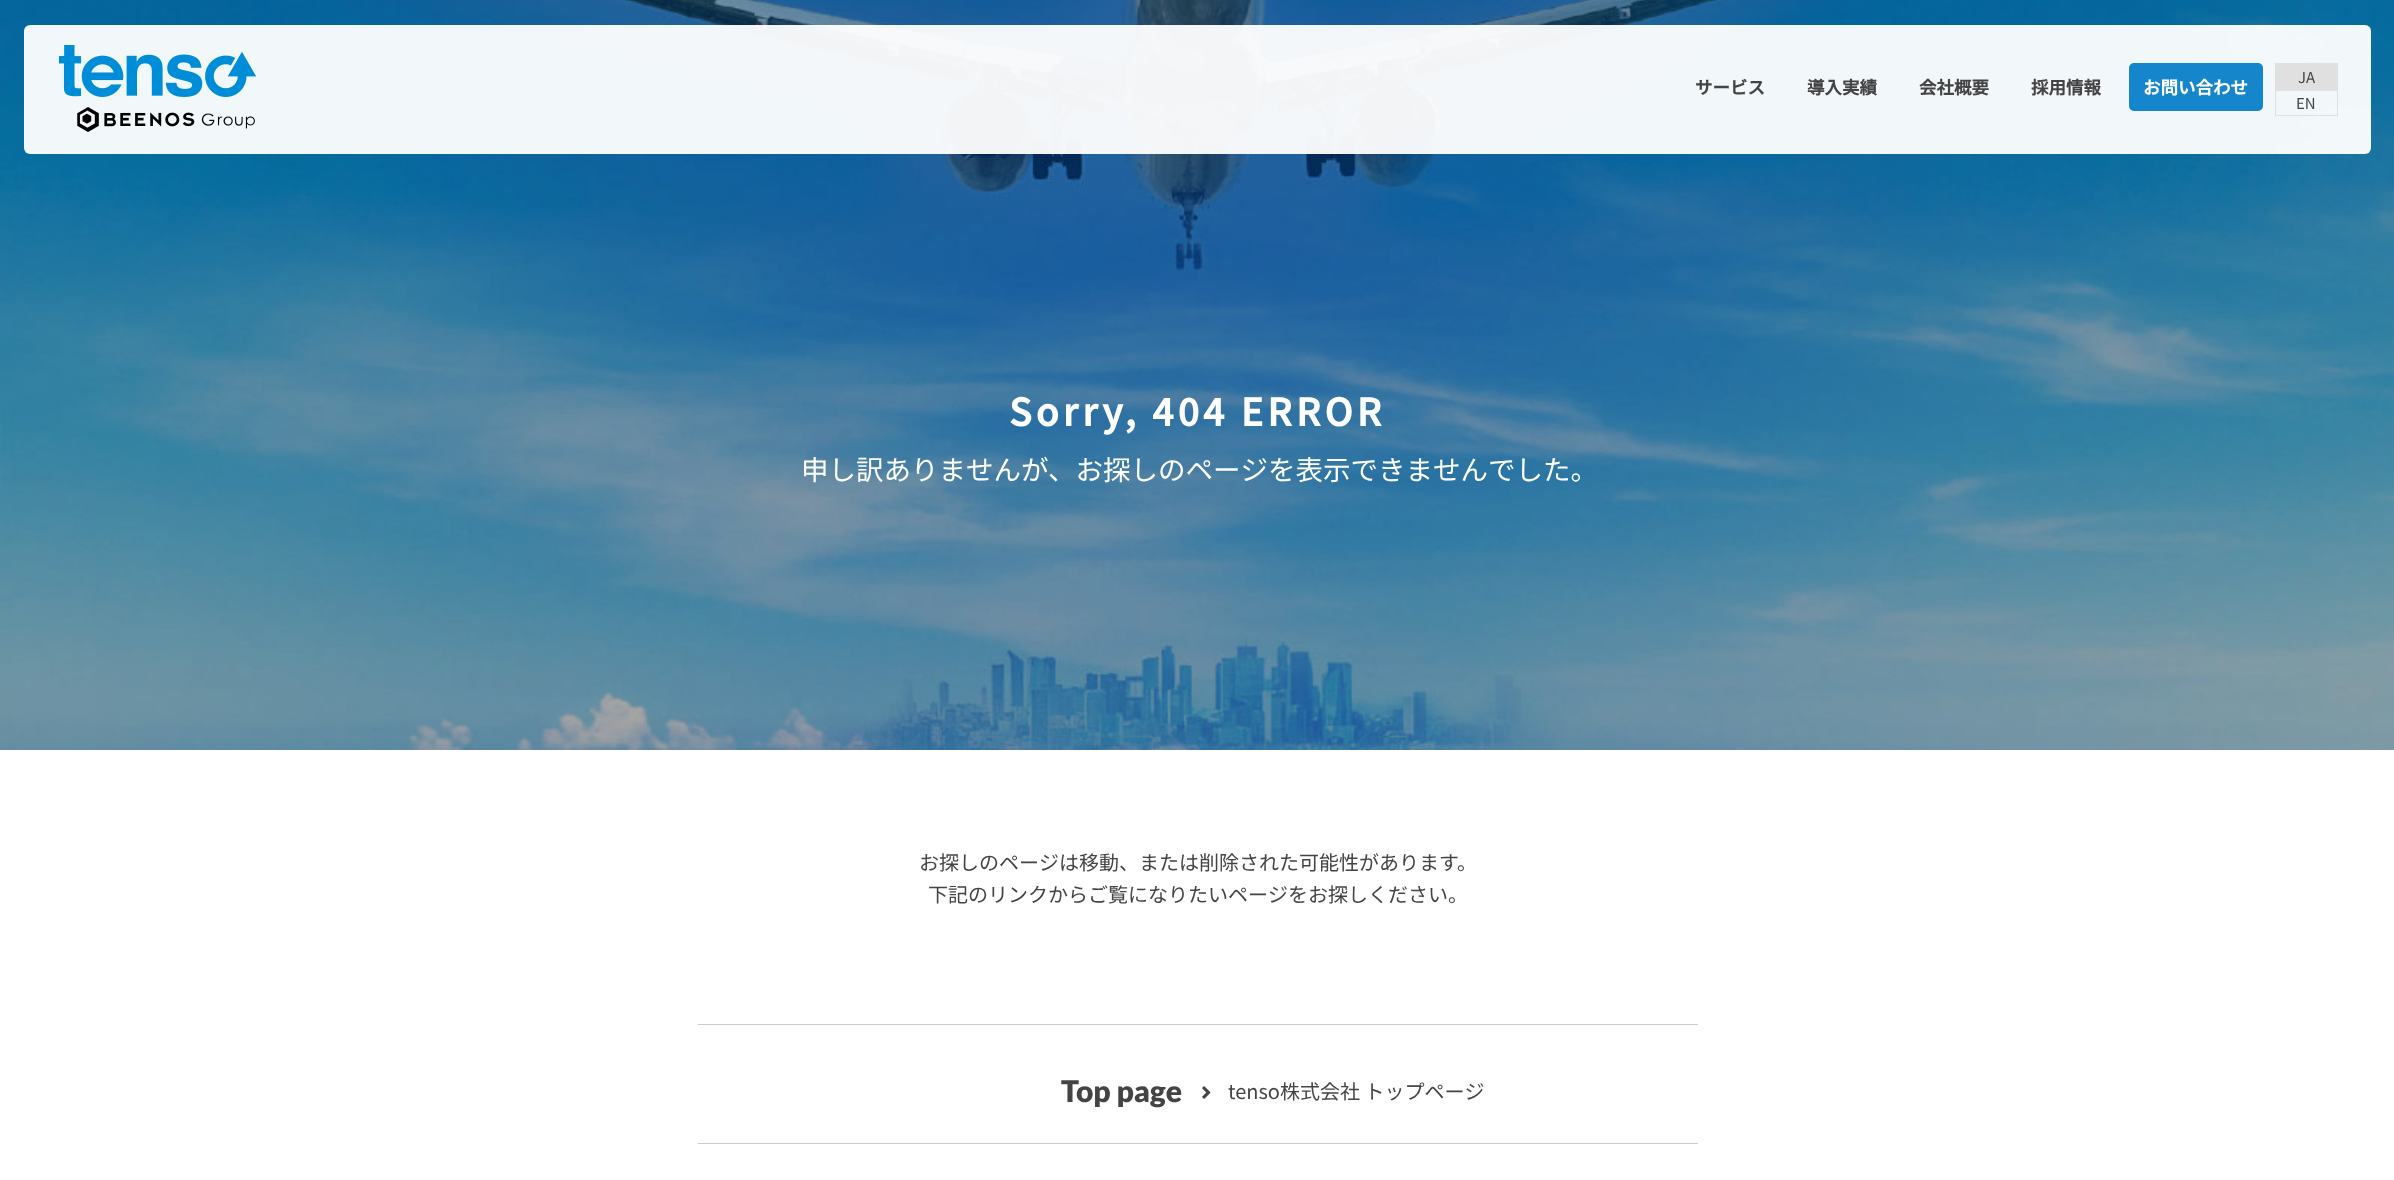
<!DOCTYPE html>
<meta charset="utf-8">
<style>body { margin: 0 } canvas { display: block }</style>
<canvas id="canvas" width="2394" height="1180"></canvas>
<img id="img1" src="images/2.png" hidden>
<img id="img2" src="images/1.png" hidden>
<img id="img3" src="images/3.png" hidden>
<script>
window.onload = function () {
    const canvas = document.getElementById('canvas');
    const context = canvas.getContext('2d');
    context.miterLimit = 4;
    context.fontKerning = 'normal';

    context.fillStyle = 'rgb(255, 255, 255)';
    context.fillRect(0, 0, 2394, 1180);
    context.drawImage(document.getElementById('img1'), 0, 0, 2394, 750);
    context.fillStyle = 'rgba(255, 255, 255, 0.95)';
    context.beginPath();
    context.roundRect(24, 25, 2347, 129, 6);
    context.fill();
    context.drawImage(document.getElementById('img2'), 59, 45, 197, 87);
    context.fillStyle = 'rgb(22, 134, 204)';
    context.beginPath();
    context.roundRect(2129, 63, 134, 48, 5);
    context.fill();
    context.fillStyle = 'rgb(224, 224, 224)';
    context.fillRect(2275, 63, 63, 27);
    context.strokeStyle = 'rgb(224, 224, 224)';
    context.strokeRect(2275.5, 90.5, 62, 25);
    context.fillStyle = 'rgb(204, 204, 204)';
    context.fillRect(698, 1024, 1000, 1);
    context.fillRect(698, 1143, 1000, 1);
    context.drawImage(document.getElementById('img3'), 1202, 1086, 9, 13);
    context.font = 'bold 17.5px Noto Sans JP';
    context.fillStyle = 'rgb(68, 68, 68)';
    context.fillText('サービス', 1695, 94);
    context.fillText('導入実績', 1807, 94);
    context.fillText('会社概要', 1919, 94);
    context.fillText('採用情報', 2031, 94);
    context.fillStyle = 'rgb(255, 255, 255)';
    context.fillText('お問い合わせ', 2143, 94);
    context.font = '15px Noto Sans JP';
    context.fillStyle = 'rgb(68, 68, 68)';
    context.fillText('JA', 2298, 83);
    context.fillText('EN', 2296, 109);
    context.letterSpacing = '4px';
    context.font = 'bold 37.5px Noto Sans JP';
    context.fillStyle = 'rgb(255, 255, 255)';
    context.fillText('Sorry, 404 ERROR', 1009, 426);
    context.letterSpacing = '0px';
    context.font = '27.5px Noto Sans JP';
    context.fillText('申し訳ありませんが、お探しのページを表示できませんでした。', 801, 480);
    context.font = '20px Noto Sans JP';
    context.fillStyle = 'rgb(68, 68, 68)';
    context.fillText('お探しのページは移動、または削除された可能性があります。', 919, 870);
    context.fillText('下記のリンクからご覧になりたいページをお探しください。', 928, 902);
    context.font = '900 30px Lato';
    context.fillText('Top page', 1061, 1102);
    context.font = '20px Noto Sans JP';
    context.fillText('tenso株式会社 トップページ', 1228, 1099);
};
</script>
